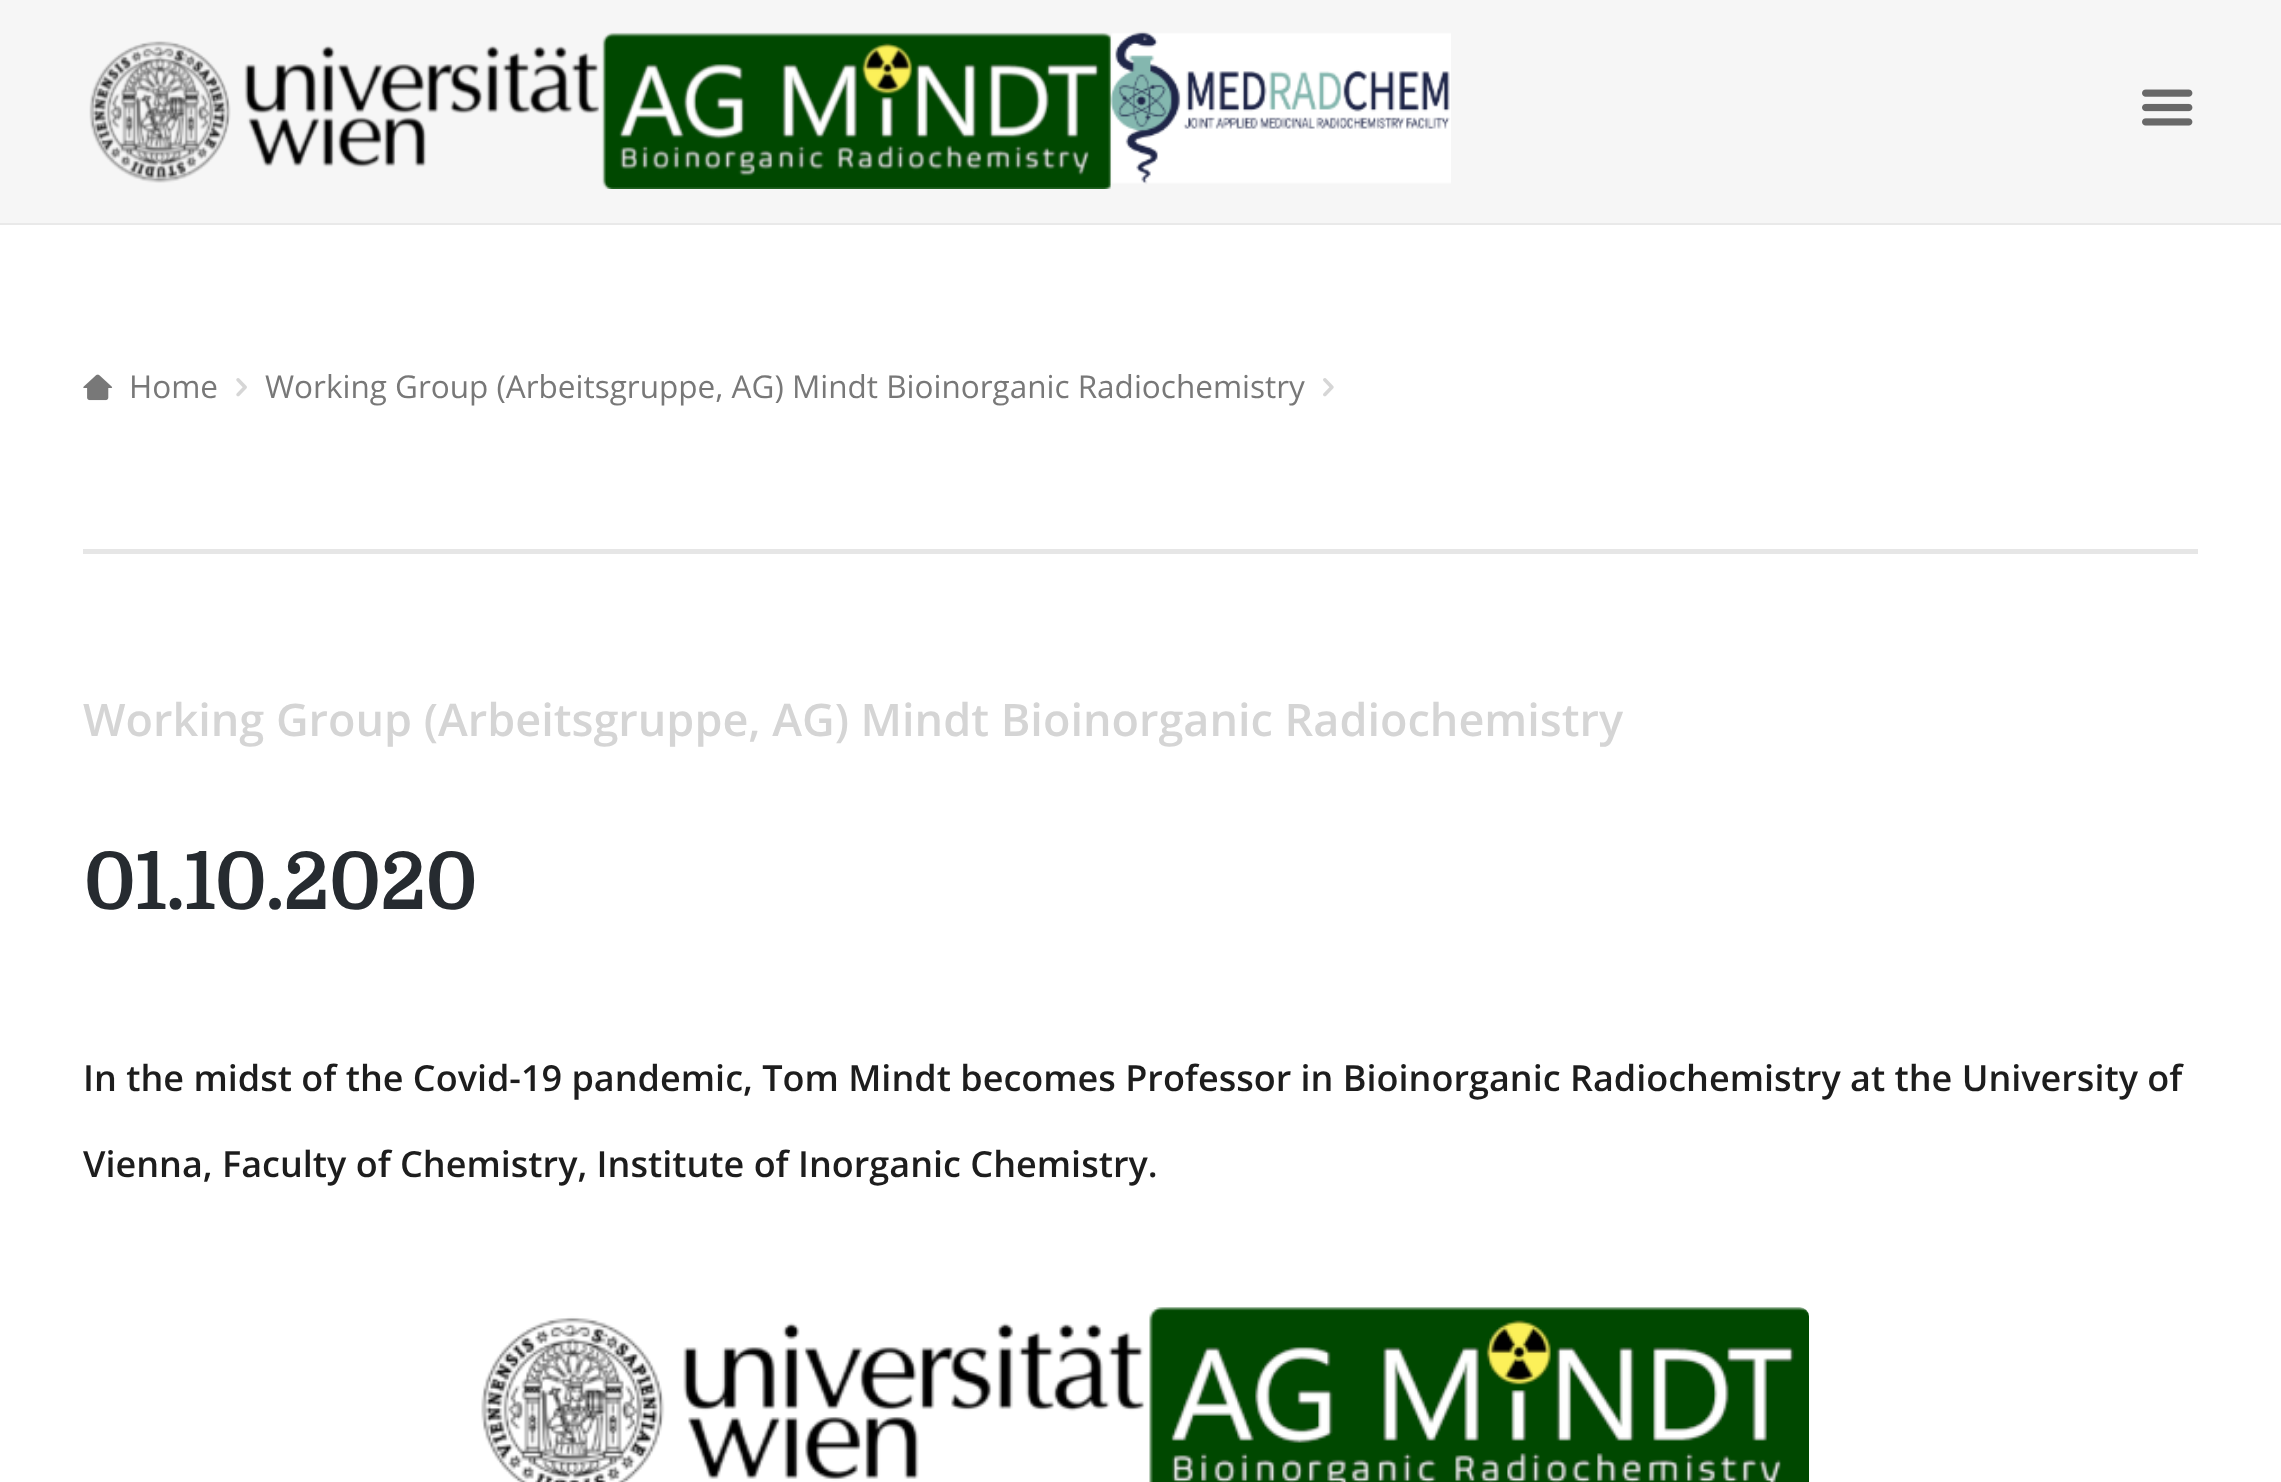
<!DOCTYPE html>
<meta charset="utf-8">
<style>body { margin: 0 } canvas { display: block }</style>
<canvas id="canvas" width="2281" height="1482"></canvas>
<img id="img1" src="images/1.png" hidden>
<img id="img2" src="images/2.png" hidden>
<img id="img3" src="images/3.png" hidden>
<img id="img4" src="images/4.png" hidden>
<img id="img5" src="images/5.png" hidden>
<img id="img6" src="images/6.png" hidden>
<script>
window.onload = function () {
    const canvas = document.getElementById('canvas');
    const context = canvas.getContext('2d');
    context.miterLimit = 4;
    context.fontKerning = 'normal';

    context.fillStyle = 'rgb(255, 255, 255)';
    context.fillRect(0, 0, 2281, 1482);
    context.fillStyle = 'rgb(246, 246, 246)';
    context.fillRect(0, 0, 2281, 223);
    context.fillStyle = 'rgb(233, 233, 233)';
    context.fillRect(0, 223, 2281, 2);
    context.drawImage(document.getElementById('img1'), 89, 31, 1362, 158);
    context.drawImage(document.getElementById('img2'), 2142, 89, 51, 37);
    context.drawImage(document.getElementById('img3'), 83, 374, 30, 27);
    context.drawImage(document.getElementById('img4'), 236, 378, 11, 19);
    context.drawImage(document.getElementById('img5'), 1323, 378, 11, 19);
    context.fillStyle = 'rgb(230, 230, 230)';
    context.fillRect(83, 549, 2115, 5);
    context.drawImage(document.getElementById('img6'), 481, 1307, 1328, 175);
    context.font = '31.5px Open Sans';
    context.fillStyle = 'rgb(120, 120, 120)';
    context.fillText('Home', 129, 398);
    context.fillText('Working Group (Arbeitsgruppe, AG) Mindt Bioinorganic Radiochemistry', 265, 398);
    context.font = '600 45px Open Sans';
    context.fillStyle = 'rgb(213, 213, 213)';
    context.fillText('Working Group (Arbeitsgruppe, AG) Mindt Bioinorganic Radiochemistry', 83, 736);
    context.font = 'bold 76.5px Domine';
    context.fillStyle = 'rgb(38, 43, 48)';
    context.fillText('01.10.2020', 83, 909);
    context.font = '600 36px Open Sans';
    context.fillStyle = 'rgb(29, 29, 29)';
    context.fillText('In the midst of the Covid-19 pandemic, Tom Mindt becomes Professor in Bioinorganic Radiochemistry at the University of', 83, 1091);
    context.fillText('Vienna, Faculty of Chemistry, Institute of Inorganic Chemistry.', 83, 1177);
};
</script>
